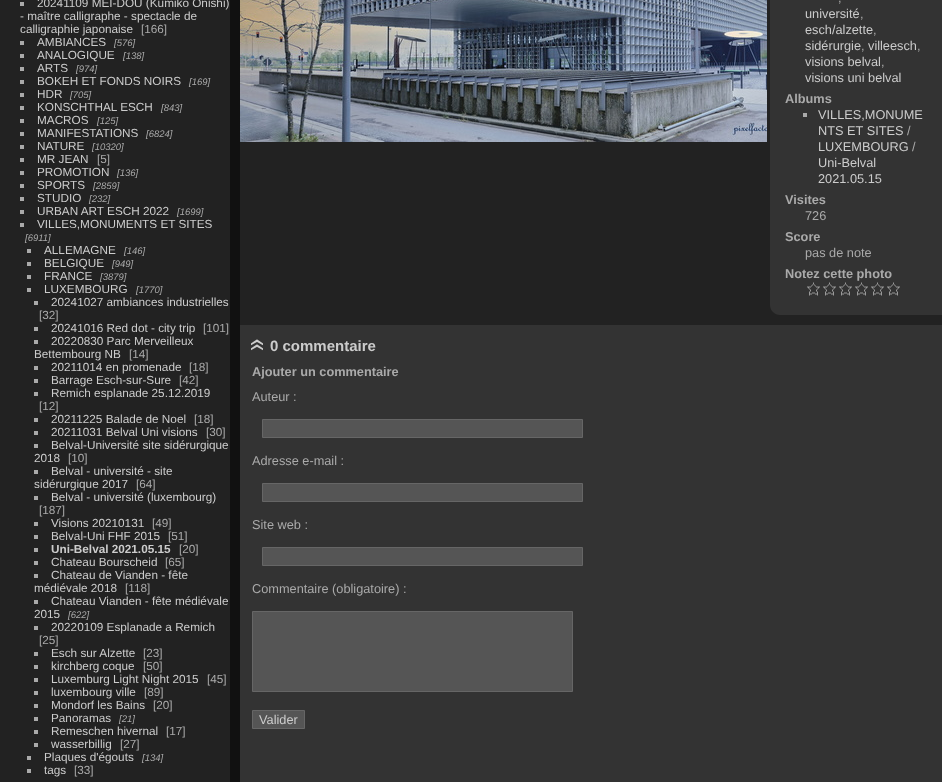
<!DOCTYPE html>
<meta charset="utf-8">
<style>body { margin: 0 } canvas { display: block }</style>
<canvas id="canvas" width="942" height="782"></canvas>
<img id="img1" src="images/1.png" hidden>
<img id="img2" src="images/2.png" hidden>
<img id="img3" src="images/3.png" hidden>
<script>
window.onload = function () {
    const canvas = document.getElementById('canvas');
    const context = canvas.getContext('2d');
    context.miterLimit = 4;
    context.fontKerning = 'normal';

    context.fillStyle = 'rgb(17, 17, 17)';
    context.fillRect(0, 0, 942, 782);
    context.fillStyle = 'rgb(34, 34, 34)';
    context.fillRect(0, 0, 230, 782);
    context.fillStyle = 'rgb(170, 170, 170)';
    context.fillRect(20, 2, 4, 4);
    context.fillRect(20, 41, 4, 4);
    context.fillRect(20, 54, 4, 4);
    context.fillRect(20, 67, 4, 4);
    context.fillRect(20, 80, 4, 4);
    context.fillRect(20, 93, 4, 4);
    context.fillRect(20, 106, 4, 4);
    context.fillRect(20, 119, 4, 4);
    context.fillRect(20, 132, 4, 4);
    context.fillRect(20, 145, 4, 4);
    context.fillRect(20, 158, 4, 4);
    context.fillRect(20, 171, 4, 4);
    context.fillRect(20, 184, 4, 4);
    context.fillRect(20, 197, 4, 4);
    context.fillRect(20, 210, 4, 4);
    context.fillRect(20, 223, 4, 4);
    context.fillRect(27, 249, 4, 4);
    context.fillRect(27, 262, 4, 4);
    context.fillRect(27, 275, 4, 4);
    context.fillRect(27, 288, 4, 4);
    context.fillRect(34, 301, 4, 4);
    context.fillRect(34, 327, 4, 4);
    context.fillRect(34, 340, 4, 4);
    context.fillRect(34, 366, 4, 4);
    context.fillRect(34, 379, 4, 4);
    context.fillRect(34, 392, 4, 4);
    context.fillRect(34, 418, 4, 4);
    context.fillRect(34, 431, 4, 4);
    context.fillRect(34, 444, 4, 4);
    context.fillRect(34, 470, 4, 4);
    context.fillRect(34, 496, 4, 4);
    context.fillRect(34, 522, 4, 4);
    context.fillRect(34, 535, 4, 4);
    context.fillRect(34, 548, 4, 4);
    context.fillRect(34, 561, 4, 4);
    context.fillRect(34, 574, 4, 4);
    context.fillRect(34, 600, 4, 4);
    context.fillRect(34, 626, 4, 4);
    context.fillRect(34, 652, 4, 4);
    context.fillRect(34, 665, 4, 4);
    context.fillRect(34, 678, 4, 4);
    context.fillRect(34, 691, 4, 4);
    context.fillRect(34, 704, 4, 4);
    context.fillRect(34, 717, 4, 4);
    context.fillRect(34, 730, 4, 4);
    context.fillRect(34, 743, 4, 4);
    context.fillRect(27, 756, 4, 4);
    context.fillRect(27, 769, 4, 4);
    context.fillStyle = 'rgb(34, 34, 34)';
    context.fillRect(240, 0, 702, 325);
    context.drawImage(document.getElementById('img1'), 240, 0, 527, 142);
    context.fillStyle = 'rgb(51, 51, 51)';
    context.beginPath();
    context.moveTo(780, -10);
    context.lineTo(942, -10);
    context.lineTo(942, 315);
    context.lineTo(780, 315);
    context.bezierCurveTo(774.5, 315, 770, 310.5, 770, 305);
    context.lineTo(770, 0);
    context.bezierCurveTo(770, -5.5, 774.5, -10, 780, -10);
    context.closePath();
    context.fill();
    context.fillStyle = 'rgb(170, 170, 170)';
    context.fillRect(803, 113, 4, 4);
    context.drawImage(document.getElementById('img2'), 807, 282, 13, 14);
    context.drawImage(document.getElementById('img2'), 823, 282, 13, 14);
    context.drawImage(document.getElementById('img2'), 839, 282, 13, 14);
    context.drawImage(document.getElementById('img2'), 855, 282, 13, 14);
    context.drawImage(document.getElementById('img2'), 871, 282, 13, 14);
    context.drawImage(document.getElementById('img2'), 887, 282, 13, 14);
    context.fillStyle = 'rgb(51, 51, 51)';
    context.fillRect(240, 325, 702, 457);
    context.drawImage(document.getElementById('img3'), 251, 339, 12, 12);
    context.fillStyle = 'rgb(85, 85, 85)';
    context.beginPath();
    context.rect(262.5, 419.5, 320, 18);
    context.fill();
    context.strokeStyle = 'rgb(102, 102, 102)';
    context.stroke();
    context.beginPath();
    context.rect(262.5, 483.5, 320, 18);
    context.fill();
    context.stroke();
    context.beginPath();
    context.rect(262.5, 547.5, 320, 18);
    context.fill();
    context.stroke();
    context.beginPath();
    context.rect(252.5, 611.5, 320, 80);
    context.fill();
    context.stroke();
    context.beginPath();
    context.rect(252.5, 710.5, 52, 18);
    context.fill();
    context.stroke();
    context.font = '11.75px Liberation Sans';
    context.fillStyle = 'rgb(204, 204, 204)';
    context.fillText('20241109 MEI-DOU (Kumiko Onishi)', 37, 7);
    context.fillText('- maître calligraphe - spectacle de', 20, 20);
    context.fillText('calligraphie japonaise', 20, 33);
    context.fillStyle = 'rgb(170, 170, 170)';
    context.fillText('[166]', 141, 33);
    context.fillStyle = 'rgb(204, 204, 204)';
    context.fillText('AMBIANCES', 37, 46);
    context.font = 'italic 9.5px Liberation Sans';
    context.fillStyle = 'rgb(170, 170, 170)';
    context.fillText('[576]', 114, 46);
    context.font = '11.75px Liberation Sans';
    context.fillStyle = 'rgb(204, 204, 204)';
    context.fillText('ANALOGIQUE', 37, 59);
    context.font = 'italic 9.5px Liberation Sans';
    context.fillStyle = 'rgb(170, 170, 170)';
    context.fillText('[138]', 123, 59);
    context.font = '11.75px Liberation Sans';
    context.fillStyle = 'rgb(204, 204, 204)';
    context.fillText('ARTS', 37, 72);
    context.font = 'italic 9.5px Liberation Sans';
    context.fillStyle = 'rgb(170, 170, 170)';
    context.fillText('[974]', 76, 72);
    context.font = '11.75px Liberation Sans';
    context.fillStyle = 'rgb(204, 204, 204)';
    context.fillText('BOKEH ET FONDS NOIRS', 37, 85);
    context.font = 'italic 9.5px Liberation Sans';
    context.fillStyle = 'rgb(170, 170, 170)';
    context.fillText('[169]', 189, 85);
    context.font = '11.75px Liberation Sans';
    context.fillStyle = 'rgb(204, 204, 204)';
    context.fillText('HDR', 37, 98);
    context.font = 'italic 9.5px Liberation Sans';
    context.fillStyle = 'rgb(170, 170, 170)';
    context.fillText('[705]', 70, 98);
    context.font = '11.75px Liberation Sans';
    context.fillStyle = 'rgb(204, 204, 204)';
    context.fillText('KONSCHTHAL ESCH', 37, 111);
    context.font = 'italic 9.5px Liberation Sans';
    context.fillStyle = 'rgb(170, 170, 170)';
    context.fillText('[843]', 161, 111);
    context.font = '11.75px Liberation Sans';
    context.fillStyle = 'rgb(204, 204, 204)';
    context.fillText('MACROS', 37, 124);
    context.font = 'italic 9.5px Liberation Sans';
    context.fillStyle = 'rgb(170, 170, 170)';
    context.fillText('[125]', 97, 124);
    context.font = '11.75px Liberation Sans';
    context.fillStyle = 'rgb(204, 204, 204)';
    context.fillText('MANIFESTATIONS', 37, 137);
    context.font = 'italic 9.5px Liberation Sans';
    context.fillStyle = 'rgb(170, 170, 170)';
    context.fillText('[6824]', 146, 137);
    context.font = '11.75px Liberation Sans';
    context.fillStyle = 'rgb(204, 204, 204)';
    context.fillText('NATURE', 37, 150);
    context.font = 'italic 9.5px Liberation Sans';
    context.fillStyle = 'rgb(170, 170, 170)';
    context.fillText('[10320]', 92, 150);
    context.font = '11.75px Liberation Sans';
    context.fillStyle = 'rgb(204, 204, 204)';
    context.fillText('MR JEAN', 37, 163);
    context.fillStyle = 'rgb(170, 170, 170)';
    context.fillText('[5]', 97, 163);
    context.fillStyle = 'rgb(204, 204, 204)';
    context.fillText('PROMOTION', 37, 176);
    context.font = 'italic 9.5px Liberation Sans';
    context.fillStyle = 'rgb(170, 170, 170)';
    context.fillText('[136]', 117, 176);
    context.font = '11.75px Liberation Sans';
    context.fillStyle = 'rgb(204, 204, 204)';
    context.fillText('SPORTS', 37, 189);
    context.font = 'italic 9.5px Liberation Sans';
    context.fillStyle = 'rgb(170, 170, 170)';
    context.fillText('[2859]', 93, 189);
    context.font = '11.75px Liberation Sans';
    context.fillStyle = 'rgb(204, 204, 204)';
    context.fillText('STUDIO', 37, 202);
    context.font = 'italic 9.5px Liberation Sans';
    context.fillStyle = 'rgb(170, 170, 170)';
    context.fillText('[232]', 89, 202);
    context.font = '11.75px Liberation Sans';
    context.fillStyle = 'rgb(204, 204, 204)';
    context.fillText('URBAN ART ESCH 2022', 37, 215);
    context.font = 'italic 9.5px Liberation Sans';
    context.fillStyle = 'rgb(170, 170, 170)';
    context.fillText('[1699]', 177, 215);
    context.font = '11.75px Liberation Sans';
    context.fillStyle = 'rgb(204, 204, 204)';
    context.fillText('VILLES,MONUMENTS ET SITES', 37, 228);
    context.font = 'italic 9.5px Liberation Sans';
    context.fillStyle = 'rgb(170, 170, 170)';
    context.fillText('[6911]', 25, 241);
    context.font = '11.75px Liberation Sans';
    context.fillStyle = 'rgb(204, 204, 204)';
    context.fillText('ALLEMAGNE', 44, 254);
    context.font = 'italic 9.5px Liberation Sans';
    context.fillStyle = 'rgb(170, 170, 170)';
    context.fillText('[146]', 124, 254);
    context.font = '11.75px Liberation Sans';
    context.fillStyle = 'rgb(204, 204, 204)';
    context.fillText('BELGIQUE', 44, 267);
    context.font = 'italic 9.5px Liberation Sans';
    context.fillStyle = 'rgb(170, 170, 170)';
    context.fillText('[949]', 112, 267);
    context.font = '11.75px Liberation Sans';
    context.fillStyle = 'rgb(204, 204, 204)';
    context.fillText('FRANCE', 44, 280);
    context.font = 'italic 9.5px Liberation Sans';
    context.fillStyle = 'rgb(170, 170, 170)';
    context.fillText('[3879]', 100, 280);
    context.font = '11.75px Liberation Sans';
    context.fillStyle = 'rgb(204, 204, 204)';
    context.fillText('LUXEMBOURG', 44, 293);
    context.font = 'italic 9.5px Liberation Sans';
    context.fillStyle = 'rgb(170, 170, 170)';
    context.fillText('[1770]', 136, 293);
    context.font = '11.75px Liberation Sans';
    context.fillStyle = 'rgb(204, 204, 204)';
    context.fillText('20241027 ambiances industrielles', 51, 306);
    context.fillStyle = 'rgb(170, 170, 170)';
    context.fillText('[32]', 39, 319);
    context.fillStyle = 'rgb(204, 204, 204)';
    context.fillText('20241016 Red dot - city trip', 51, 332);
    context.fillStyle = 'rgb(170, 170, 170)';
    context.fillText('[101]', 203, 332);
    context.fillStyle = 'rgb(204, 204, 204)';
    context.fillText('20220830 Parc Merveilleux', 51, 345);
    context.fillText('Bettembourg NB', 34, 358);
    context.fillStyle = 'rgb(170, 170, 170)';
    context.fillText('[14]', 129, 358);
    context.fillStyle = 'rgb(204, 204, 204)';
    context.fillText('20211014 en promenade', 51, 371);
    context.fillStyle = 'rgb(170, 170, 170)';
    context.fillText('[18]', 189, 371);
    context.fillStyle = 'rgb(204, 204, 204)';
    context.fillText('Barrage Esch-sur-Sure', 51, 384);
    context.fillStyle = 'rgb(170, 170, 170)';
    context.fillText('[42]', 179, 384);
    context.fillStyle = 'rgb(204, 204, 204)';
    context.fillText('Remich esplanade 25.12.2019', 51, 397);
    context.fillStyle = 'rgb(170, 170, 170)';
    context.fillText('[12]', 39, 410);
    context.fillStyle = 'rgb(204, 204, 204)';
    context.fillText('20211225 Balade de Noel', 51, 423);
    context.fillStyle = 'rgb(170, 170, 170)';
    context.fillText('[18]', 194, 423);
    context.fillStyle = 'rgb(204, 204, 204)';
    context.fillText('20211031 Belval Uni visions', 51, 436);
    context.fillStyle = 'rgb(170, 170, 170)';
    context.fillText('[30]', 206, 436);
    context.fillStyle = 'rgb(204, 204, 204)';
    context.fillText('Belval-Université site sidérurgique', 51, 449);
    context.fillText('2018', 34, 462);
    context.fillStyle = 'rgb(170, 170, 170)';
    context.fillText('[10]', 68, 462);
    context.fillStyle = 'rgb(204, 204, 204)';
    context.fillText('Belval - université - site', 51, 475);
    context.fillText('sidérurgique 2017', 34, 488);
    context.fillStyle = 'rgb(170, 170, 170)';
    context.fillText('[64]', 136, 488);
    context.fillStyle = 'rgb(204, 204, 204)';
    context.fillText('Belval - université (luxembourg)', 51, 501);
    context.fillStyle = 'rgb(170, 170, 170)';
    context.fillText('[187]', 39, 514);
    context.fillStyle = 'rgb(204, 204, 204)';
    context.fillText('Visions 20210131', 51, 527);
    context.fillStyle = 'rgb(170, 170, 170)';
    context.fillText('[49]', 152, 527);
    context.fillStyle = 'rgb(204, 204, 204)';
    context.fillText('Belval-Uni FHF 2015', 51, 540);
    context.fillStyle = 'rgb(170, 170, 170)';
    context.fillText('[51]', 168, 540);
    context.font = 'bold 11.75px Liberation Sans';
    context.fillStyle = 'rgb(204, 204, 204)';
    context.fillText('Uni-Belval 2021.05.15', 51, 553);
    context.font = '11.75px Liberation Sans';
    context.fillStyle = 'rgb(170, 170, 170)';
    context.fillText('[20]', 179, 553);
    context.fillStyle = 'rgb(204, 204, 204)';
    context.fillText('Chateau Bourscheid', 51, 566);
    context.fillStyle = 'rgb(170, 170, 170)';
    context.fillText('[65]', 165, 566);
    context.fillStyle = 'rgb(204, 204, 204)';
    context.fillText('Chateau de Vianden - fête', 51, 579);
    context.fillText('médiévale 2018', 34, 592);
    context.fillStyle = 'rgb(170, 170, 170)';
    context.fillText('[118]', 125, 592);
    context.fillStyle = 'rgb(204, 204, 204)';
    context.fillText('Chateau Vianden - fête médiévale', 51, 605);
    context.fillText('2015', 34, 618);
    context.font = 'italic 9.5px Liberation Sans';
    context.fillStyle = 'rgb(170, 170, 170)';
    context.fillText('[622]', 68, 618);
    context.font = '11.75px Liberation Sans';
    context.fillStyle = 'rgb(204, 204, 204)';
    context.fillText('20220109 Esplanade a Remich', 51, 631);
    context.fillStyle = 'rgb(170, 170, 170)';
    context.fillText('[25]', 39, 644);
    context.fillStyle = 'rgb(204, 204, 204)';
    context.fillText('Esch sur Alzette', 51, 657);
    context.fillStyle = 'rgb(170, 170, 170)';
    context.fillText('[23]', 143, 657);
    context.fillStyle = 'rgb(204, 204, 204)';
    context.fillText('kirchberg coque', 51, 670);
    context.fillStyle = 'rgb(170, 170, 170)';
    context.fillText('[50]', 143, 670);
    context.fillStyle = 'rgb(204, 204, 204)';
    context.fillText('Luxemburg Light Night 2015', 51, 683);
    context.fillStyle = 'rgb(170, 170, 170)';
    context.fillText('[45]', 207, 683);
    context.fillStyle = 'rgb(204, 204, 204)';
    context.fillText('luxembourg ville', 51, 696);
    context.fillStyle = 'rgb(170, 170, 170)';
    context.fillText('[89]', 144, 696);
    context.fillStyle = 'rgb(204, 204, 204)';
    context.fillText('Mondorf les Bains', 51, 709);
    context.fillStyle = 'rgb(170, 170, 170)';
    context.fillText('[20]', 153, 709);
    context.fillStyle = 'rgb(204, 204, 204)';
    context.fillText('Panoramas', 51, 722);
    context.font = 'italic 9.5px Liberation Sans';
    context.fillStyle = 'rgb(170, 170, 170)';
    context.fillText('[21]', 119, 722);
    context.font = '11.75px Liberation Sans';
    context.fillStyle = 'rgb(204, 204, 204)';
    context.fillText('Remeschen hivernal', 51, 735);
    context.fillStyle = 'rgb(170, 170, 170)';
    context.fillText('[17]', 166, 735);
    context.fillStyle = 'rgb(204, 204, 204)';
    context.fillText('wasserbillig', 51, 748);
    context.fillStyle = 'rgb(170, 170, 170)';
    context.fillText('[27]', 120, 748);
    context.fillStyle = 'rgb(204, 204, 204)';
    context.fillText('Plaques d\'égouts', 44, 761);
    context.font = 'italic 9.5px Liberation Sans';
    context.fillStyle = 'rgb(170, 170, 170)';
    context.fillText('[134]', 142, 761);
    context.font = '11.75px Liberation Sans';
    context.fillStyle = 'rgb(204, 204, 204)';
    context.fillText('tags', 44, 774);
    context.fillStyle = 'rgb(170, 170, 170)';
    context.fillText('[33]', 74, 774);
    context.font = '12.75px Liberation Sans';
    context.fillText(',', 838, 2);
    context.fillStyle = 'rgb(204, 204, 204)';
    context.fillText('université', 805, 18);
    context.fillStyle = 'rgb(170, 170, 170)';
    context.fillText(',', 860, 18);
    context.fillStyle = 'rgb(204, 204, 204)';
    context.fillText('esch/alzette', 805, 34);
    context.fillStyle = 'rgb(170, 170, 170)';
    context.fillText(',', 873, 34);
    context.fillStyle = 'rgb(204, 204, 204)';
    context.fillText('sidérurgie', 805, 50);
    context.fillStyle = 'rgb(170, 170, 170)';
    context.fillText(',', 861, 50);
    context.fillStyle = 'rgb(204, 204, 204)';
    context.fillText('villeesch', 868, 50);
    context.fillStyle = 'rgb(170, 170, 170)';
    context.fillText(',', 917, 50);
    context.fillStyle = 'rgb(204, 204, 204)';
    context.fillText('visions belval', 805, 66);
    context.fillStyle = 'rgb(170, 170, 170)';
    context.fillText(',', 881, 66);
    context.fillStyle = 'rgb(204, 204, 204)';
    context.fillText('visions uni belval', 805, 82);
    context.font = 'bold 12.75px Liberation Sans';
    context.fillStyle = 'rgb(170, 170, 170)';
    context.fillText('Albums', 785, 103);
    context.font = '12.75px Liberation Sans';
    context.fillStyle = 'rgb(204, 204, 204)';
    context.fillText('VILLES,MONUME', 818, 119);
    context.fillText('NTS ET SITES', 818, 135);
    context.fillStyle = 'rgb(170, 170, 170)';
    context.fillText('/', 907, 135);
    context.fillStyle = 'rgb(204, 204, 204)';
    context.fillText('LUXEMBOURG', 818, 151);
    context.fillStyle = 'rgb(170, 170, 170)';
    context.fillText('/', 912, 151);
    context.fillStyle = 'rgb(204, 204, 204)';
    context.fillText('Uni-Belval', 818, 167);
    context.fillText('2021.05.15', 818, 183);
    context.font = 'bold 12.75px Liberation Sans';
    context.fillStyle = 'rgb(170, 170, 170)';
    context.fillText('Visites', 785, 204);
    context.font = '12.75px Liberation Sans';
    context.fillText('726', 805, 220);
    context.font = 'bold 12.75px Liberation Sans';
    context.fillText('Score', 785, 241);
    context.font = '12.75px Liberation Sans';
    context.fillText('pas de note', 805, 257);
    context.font = 'bold 12.75px Liberation Sans';
    context.fillText('Notez cette photo', 785, 278);
    context.font = 'bold 15px Liberation Sans';
    context.fillStyle = 'rgb(204, 204, 204)';
    context.fillText('0 commentaire', 270, 351);
    context.font = 'bold 12.75px Liberation Sans';
    context.fillStyle = 'rgb(170, 170, 170)';
    context.fillText('Ajouter un commentaire', 252, 376);
    context.font = '12.75px Liberation Sans';
    context.fillText('Auteur :', 252, 401);
    context.fillText('Adresse e-mail :', 252, 465);
    context.fillText('Site web :', 252, 529);
    context.fillText('Commentaire (obligatoire) :', 252, 593);
    context.fillStyle = 'rgb(204, 204, 204)';
    context.fillText('Valider', 259, 724);
};
</script>
